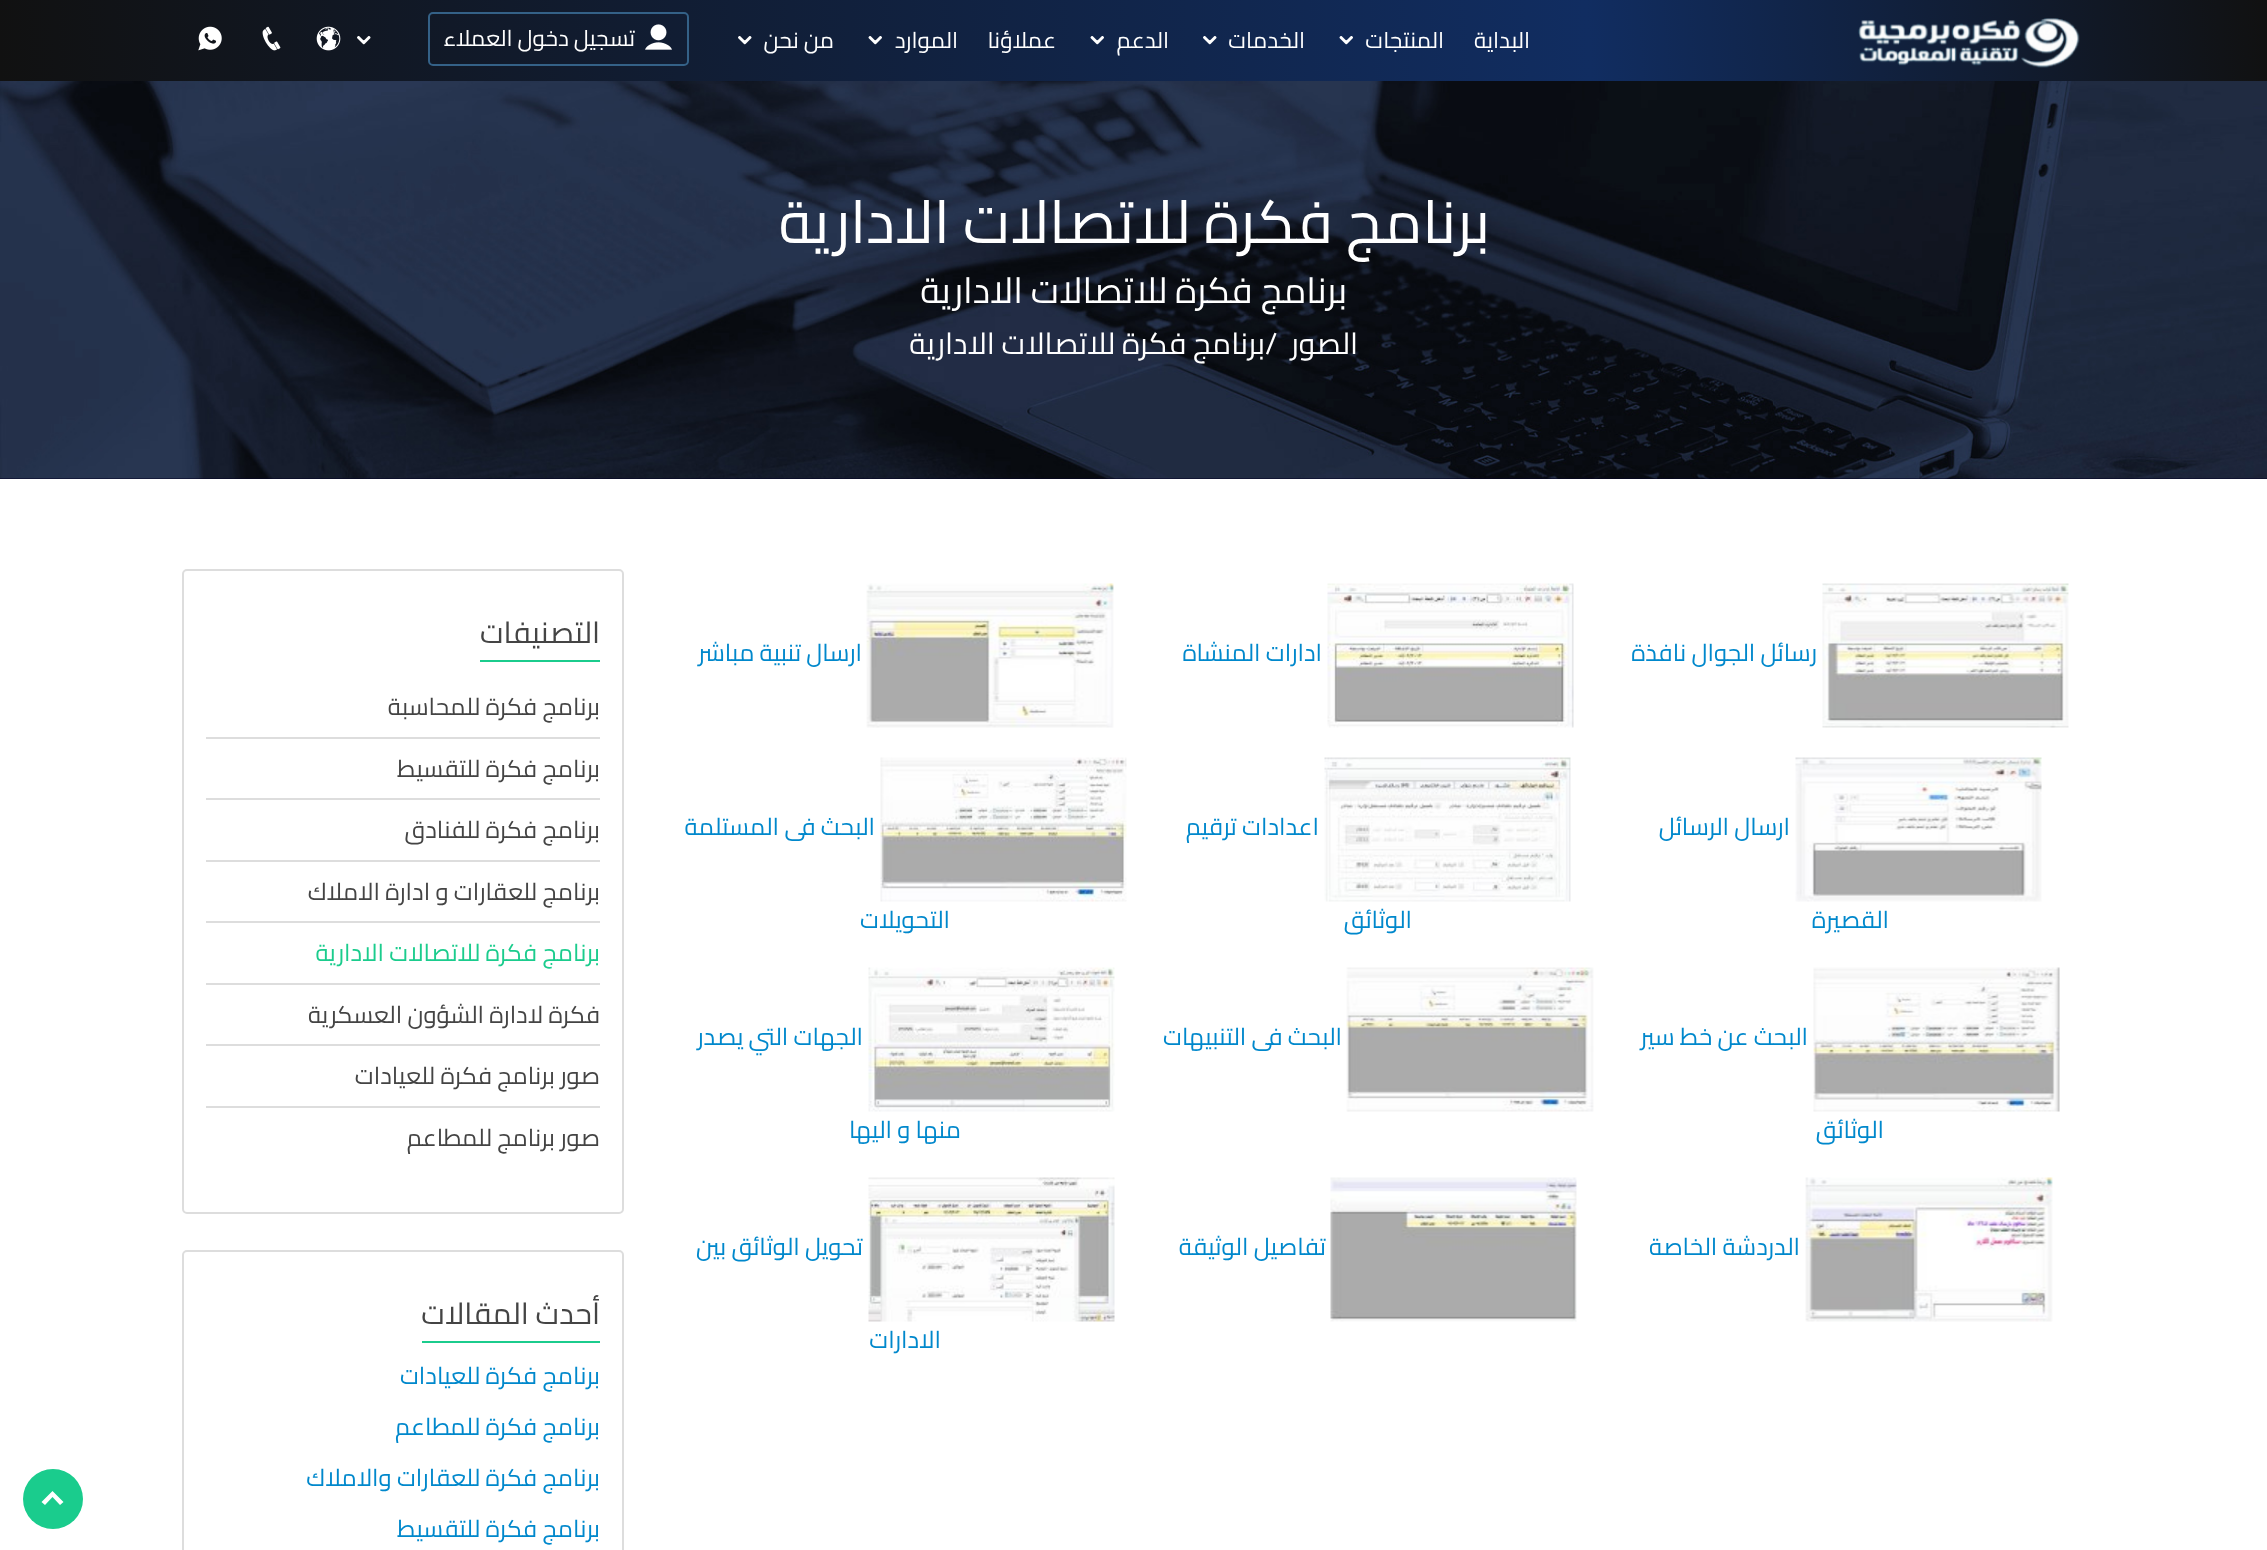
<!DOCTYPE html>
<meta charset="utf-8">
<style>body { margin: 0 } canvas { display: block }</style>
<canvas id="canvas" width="2267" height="1550"></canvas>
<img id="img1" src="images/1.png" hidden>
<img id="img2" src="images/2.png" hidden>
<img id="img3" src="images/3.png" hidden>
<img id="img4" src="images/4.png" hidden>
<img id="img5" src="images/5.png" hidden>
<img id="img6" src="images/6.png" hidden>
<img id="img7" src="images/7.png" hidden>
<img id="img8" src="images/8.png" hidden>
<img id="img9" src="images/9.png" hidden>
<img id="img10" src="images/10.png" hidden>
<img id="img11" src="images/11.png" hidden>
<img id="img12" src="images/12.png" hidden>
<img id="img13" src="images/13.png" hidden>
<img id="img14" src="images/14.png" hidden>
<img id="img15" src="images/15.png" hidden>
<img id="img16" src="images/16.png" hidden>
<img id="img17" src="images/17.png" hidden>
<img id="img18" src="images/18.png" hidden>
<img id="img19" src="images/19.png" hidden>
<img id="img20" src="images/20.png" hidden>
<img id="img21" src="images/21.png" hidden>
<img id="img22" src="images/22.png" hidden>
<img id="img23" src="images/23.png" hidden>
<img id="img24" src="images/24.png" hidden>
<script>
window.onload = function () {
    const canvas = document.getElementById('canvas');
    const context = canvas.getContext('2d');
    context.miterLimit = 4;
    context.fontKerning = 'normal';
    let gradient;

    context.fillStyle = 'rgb(255, 255, 255)';
    context.fillRect(0, 0, 2267, 1550);
    gradient = context.createLinearGradient(2265, -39, 2.7, 120);
    gradient.addColorStop(0, 'rgb(17, 17, 17)');
    gradient.addColorStop(0.3, 'rgb(17, 45, 97)');
    gradient.addColorStop(1, 'rgb(17, 17, 17)');
    context.fillStyle = gradient;
    context.fillRect(0, 0, 2267, 81);
    context.drawImage(document.getElementById('img1'), 1858, 18, 222, 50);
    context.drawImage(document.getElementById('img2'), 1339, 36, 14, 9);
    context.drawImage(document.getElementById('img3'), 1203, 36, 14, 9);
    context.drawImage(document.getElementById('img4'), 1090, 36, 14, 9);
    context.drawImage(document.getElementById('img5'), 868, 36, 14, 9);
    context.drawImage(document.getElementById('img6'), 738, 36, 14, 9);
    context.beginPath();
    context.roundRect(429, 13, 259, 52, 4);
    context.strokeStyle = 'rgb(52, 97, 135)';
    context.lineWidth = 2;
    context.stroke();
    context.drawImage(document.getElementById('img7'), 645, 24, 27, 26);
    context.drawImage(document.getElementById('img8'), 357, 36, 14, 9);
    context.drawImage(document.getElementById('img9'), 316, 26, 25, 25);
    context.drawImage(document.getElementById('img10'), 262, 26, 19, 25);
    context.drawImage(document.getElementById('img11'), 198, 26, 24, 25);
    context.fillStyle = 'rgb(2, 0, 37)';
    context.fillRect(0, 478, 2267, 1);
    context.drawImage(document.getElementById('img12'), 0, 81, 2267, 398);
    context.drawImage(document.getElementById('img13'), 1822, 583, 247, 145);
    context.drawImage(document.getElementById('img14'), 1327, 583, 247, 145);
    context.drawImage(document.getElementById('img15'), 866, 583, 248, 145);
    context.drawImage(document.getElementById('img16'), 1795, 757, 247, 145);
    context.drawImage(document.getElementById('img17'), 1324, 757, 247, 145);
    context.drawImage(document.getElementById('img18'), 880, 757, 247, 145);
    context.drawImage(document.getElementById('img19'), 1813, 967, 247, 145);
    context.drawImage(document.getElementById('img20'), 1346, 967, 248, 145);
    context.drawImage(document.getElementById('img21'), 868, 967, 247, 145);
    context.drawImage(document.getElementById('img22'), 1805, 1177, 248, 145);
    context.drawImage(document.getElementById('img23'), 1330, 1177, 247, 145);
    context.drawImage(document.getElementById('img24'), 868, 1177, 247, 145);
    context.beginPath();
    context.roundRect(183, 570, 440, 643, 4);
    context.strokeStyle = 'rgb(221, 221, 221)';
    context.stroke();
    context.fillStyle = 'rgb(27, 204, 141)';
    context.fillRect(480, 660, 120, 2);
    context.fillStyle = 'rgb(221, 221, 221)';
    context.fillRect(206, 737, 394, 2);
    context.fillRect(206, 798, 394, 2);
    context.fillRect(206, 860, 394, 2);
    context.fillRect(206, 921, 394, 2);
    context.fillRect(206, 983, 394, 2);
    context.fillRect(206, 1044, 394, 2);
    context.fillRect(206, 1106, 394, 2);
    context.beginPath();
    context.roundRect(183, 1251, 440, 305, 4);
    context.stroke();
    context.fillStyle = 'rgb(27, 204, 141)';
    context.fillRect(422, 1341, 178, 2);
    context.fillStyle = 'rgb(26, 204, 141)';
    context.beginPath();
    context.arc(53, 1499, 30, 0, 2 * Math.PI);
    context.fill();
    context.fillStyle = 'rgb(255, 255, 255)';
    context.beginPath();
    context.moveTo(45, 1505);
    context.lineTo(52.5, 1497);
    context.lineTo(60, 1505);
    context.lineTo(63.5, 1502);
    context.lineTo(52.5, 1491);
    context.lineTo(41.5, 1502);
    context.closePath();
    context.fill();
    context.direction = 'rtl';
    context.font = '22.5px Cairo';
    context.fillText('البداية', 1530, 48);
    context.fillText('المنتجات', 1444, 48);
    context.fillText('الخدمات', 1305, 48);
    context.fillText('الدعم', 1169, 48);
    context.fillText('عملاؤنا', 1056, 48);
    context.fillText('الموارد', 958, 48);
    context.fillText('من نحن', 834, 48);
    context.fillText('تسجيل دخول العملاء', 635, 46);
    context.font = '60px Cairo';
    context.fillText('برنامج فكرة للاتصالات الادارية', 1490, 243);
    context.font = '36px Cairo';
    context.fillText('برنامج فكرة للاتصالات الادارية', 1347, 303);
    context.font = '30px Cairo';
    context.fillText('الصور', 1358, 354);
    context.direction = 'ltr';
    context.fillText('/', 1265, 354);
    context.direction = 'rtl';
    context.fillText('برنامج فكرة للاتصالات الادارية', 1265, 354);
    context.font = '24px Cairo';
    context.fillStyle = 'rgb(0, 136, 204)';
    context.fillText('رسائل الجوال نافذة', 1817, 661);
    context.fillText('ادارات المنشاة', 1322, 661);
    context.fillText('ارسال تنبية مباشر', 862, 661);
    context.fillText('ارسال الرسائل', 1790, 835);
    context.fillText('القصيرة', 1889, 928);
    context.fillText('اعدادات ترقيم', 1319, 835);
    context.fillText('الوثائق', 1412, 928);
    context.fillText('البحث فى', 875, 835);
    context.fillText('المستلمة', 779, 835);
    context.fillText('التحويلات', 950, 928);
    context.fillText('البحث عن خط سير', 1808, 1045);
    context.fillText('الوثائق', 1884, 1138);
    context.fillText('البحث فى التنبيهات', 1342, 1045);
    context.fillText('الجهات التي يصدر', 863, 1045);
    context.fillText('منها و اليها', 961, 1138);
    context.fillText('الدردشة الخاصة', 1800, 1255);
    context.fillText('تفاصيل الوثيقة', 1326, 1255);
    context.fillText('تحويل الوثائق بين', 863, 1255);
    context.fillText('الادارات', 941, 1348);
    context.font = '30px Cairo';
    context.fillStyle = 'rgb(68, 68, 68)';
    context.fillText('التصنيفات', 600, 643);
    context.font = '24px Cairo';
    context.fillText('برنامج فكرة للمحاسبة', 600, 715);
    context.fillText('برنامج فكرة للتقسيط', 600, 777);
    context.fillText('برنامج فكرة للفنادق', 600, 838);
    context.fillText('برنامج للعقارات و ادارة الاملاك', 600, 900);
    context.fillStyle = 'rgb(27, 204, 141)';
    context.fillText('برنامج فكرة للاتصالات الادارية', 600, 961);
    context.fillStyle = 'rgb(68, 68, 68)';
    context.fillText('فكرة لادارة الشؤون العسكرية', 600, 1023);
    context.fillText('صور برنامج فكرة للعيادات', 600, 1084);
    context.fillText('صور برنامج للمطاعم', 600, 1146);
    context.font = '30px Cairo';
    context.fillText('أحدث المقالات', 600, 1324);
    context.font = '24px Cairo';
    context.fillStyle = 'rgb(0, 136, 204)';
    context.fillText('برنامج فكرة للعيادات', 600, 1384);
    context.fillText('برنامج فكرة للمطاعم', 600, 1435);
    context.fillText('برنامج فكرة للعقارات والاملاك', 600, 1486);
    context.fillText('برنامج فكرة للتقسيط', 600, 1537);
};
</script>
